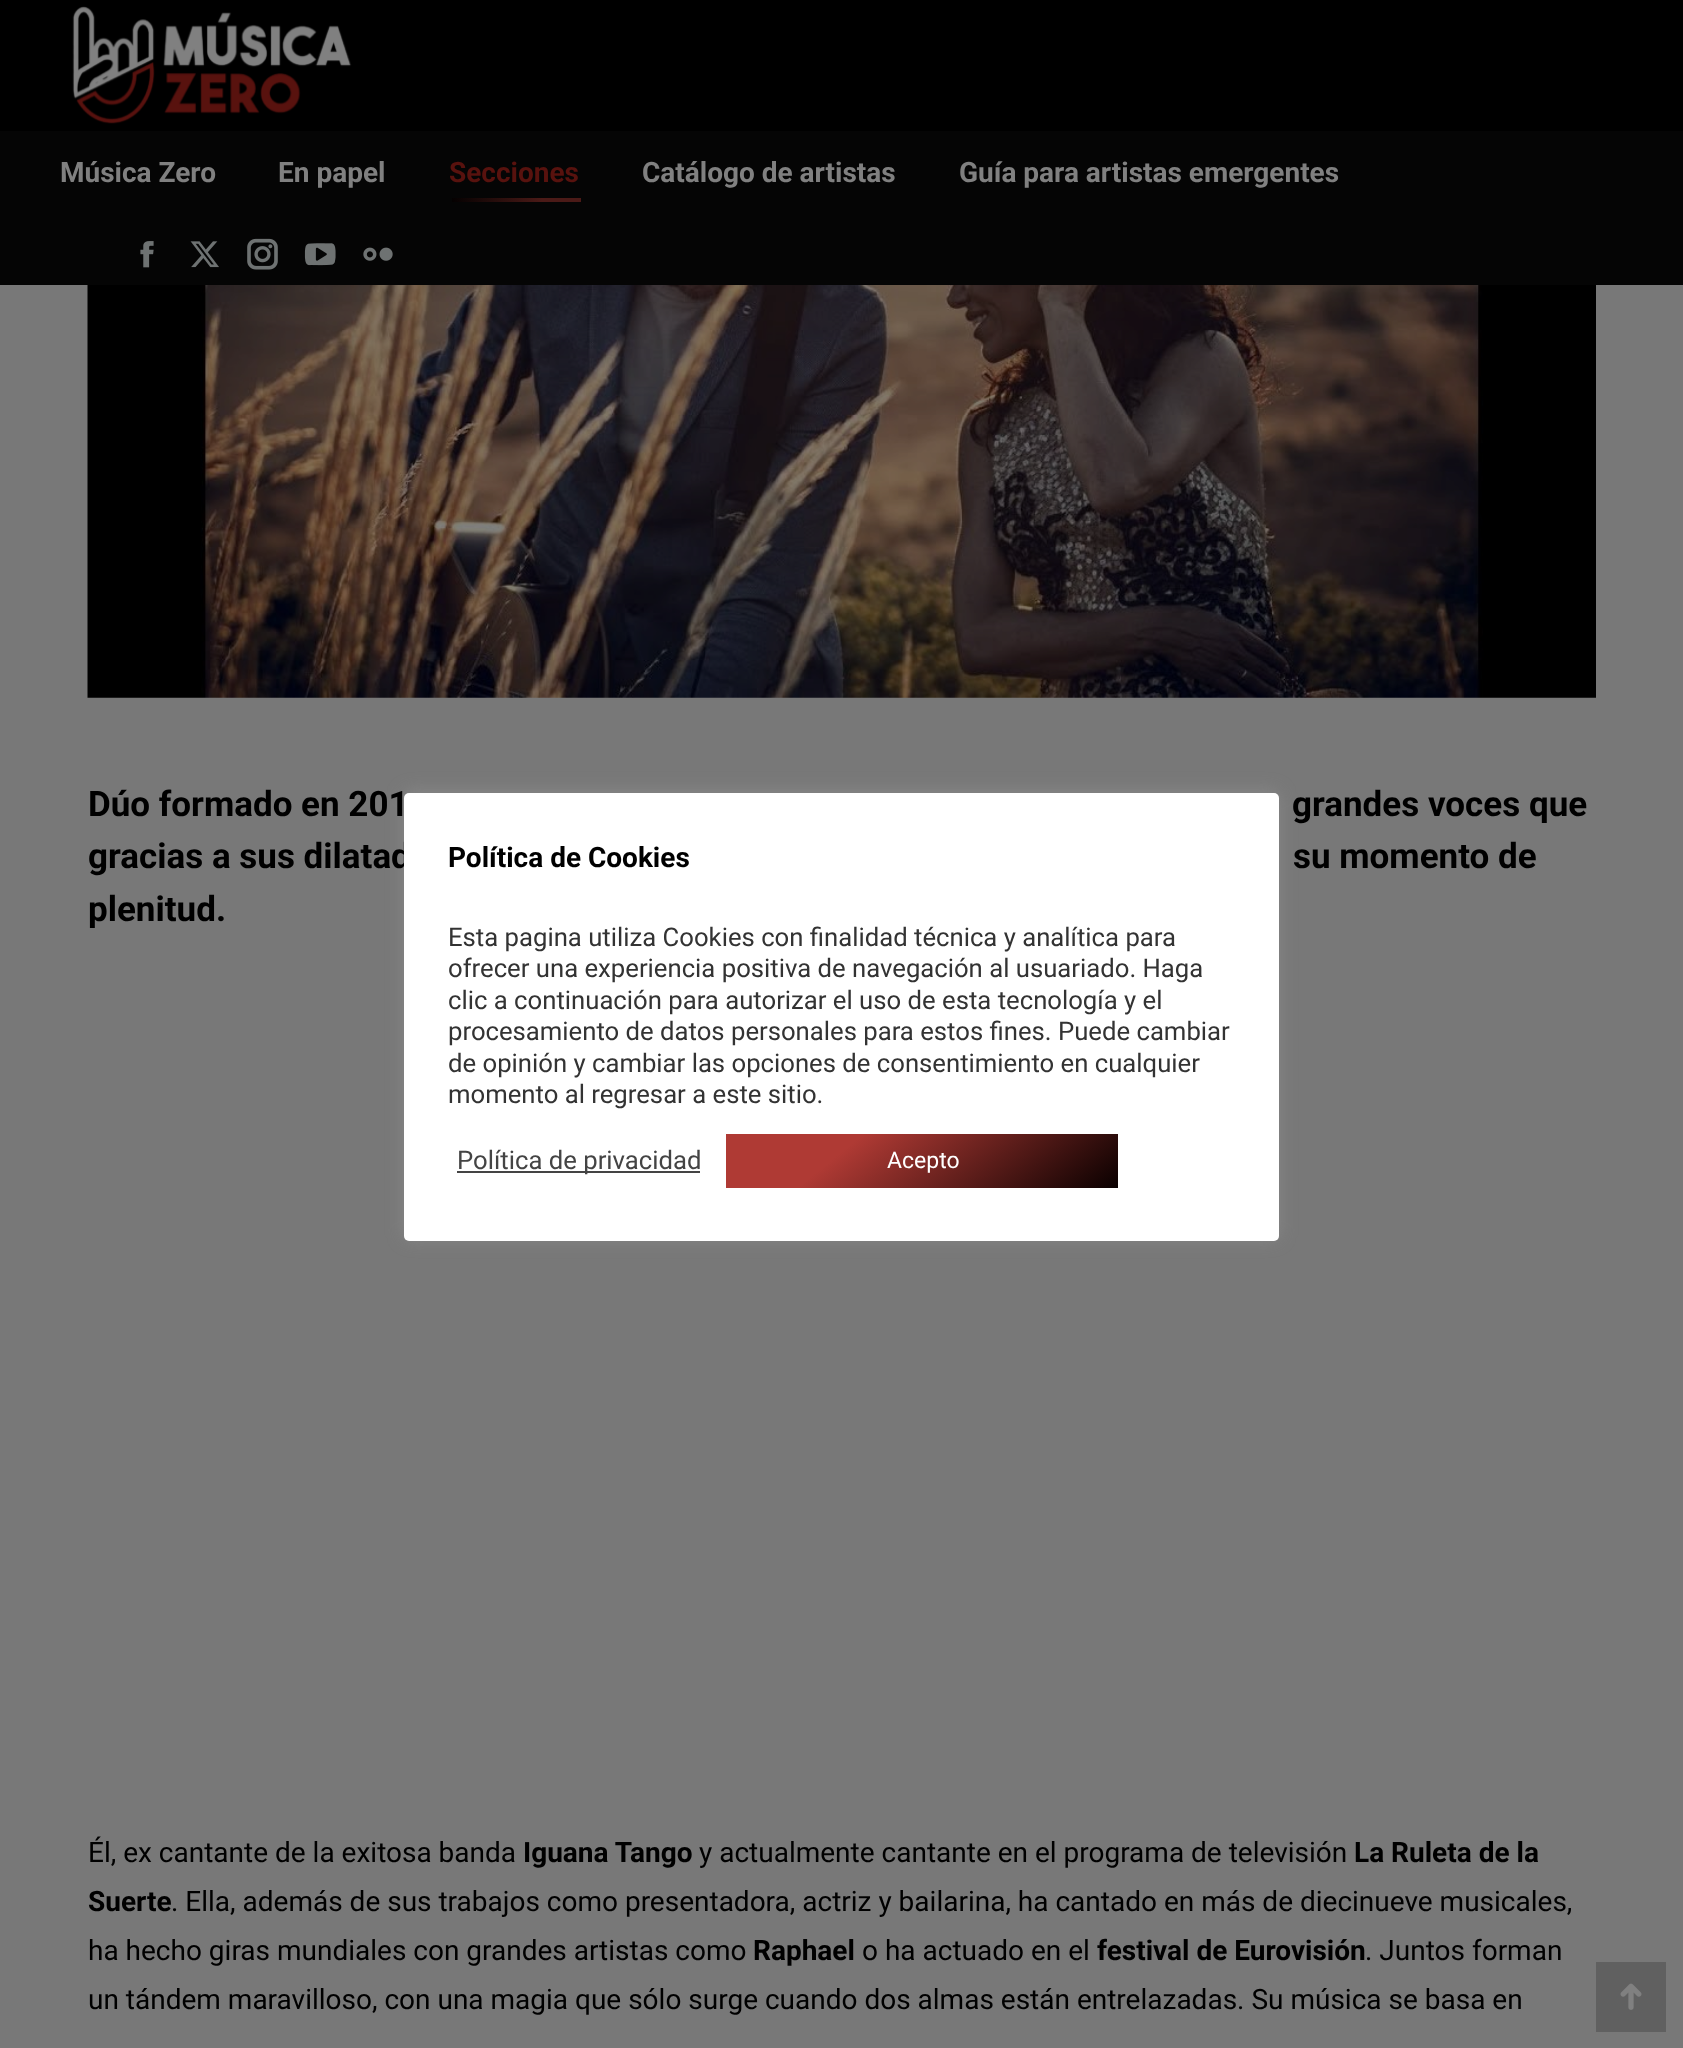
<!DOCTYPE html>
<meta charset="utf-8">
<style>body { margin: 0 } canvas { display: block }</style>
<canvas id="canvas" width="1683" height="2048"></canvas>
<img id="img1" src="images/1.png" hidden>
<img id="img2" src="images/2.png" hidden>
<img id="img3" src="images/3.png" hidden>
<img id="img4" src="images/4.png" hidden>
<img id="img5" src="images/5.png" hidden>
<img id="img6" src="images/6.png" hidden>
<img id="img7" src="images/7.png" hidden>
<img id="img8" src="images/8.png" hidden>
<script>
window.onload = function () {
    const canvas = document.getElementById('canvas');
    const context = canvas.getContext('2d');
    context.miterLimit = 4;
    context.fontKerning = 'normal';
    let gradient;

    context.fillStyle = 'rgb(120, 120, 120)';
    context.fillRect(0, 0, 1683, 2048);
    context.fillStyle = 'rgb(0, 0, 0)';
    context.fillRect(0, 0, 1683, 131);
    context.drawImage(document.getElementById('img1'), 72, 6, 280, 118);
    context.fillStyle = 'rgb(5, 5, 5)';
    context.fillRect(0, 131, 1683, 154);
    gradient = context.createLinearGradient(581, 200, 452, 200);
    gradient.addColorStop(0.3, 'rgb(75, 26, 23)');
    gradient.addColorStop(1, 'rgb(5, 1, 1)');
    context.fillStyle = gradient;
    context.fillRect(452, 198, 129, 4);
    context.drawImage(document.getElementById('img2'), 140, 241, 14, 27);
    context.drawImage(document.getElementById('img3'), 190, 241, 29, 27);
    context.drawImage(document.getElementById('img4'), 247, 238, 31, 32);
    context.drawImage(document.getElementById('img5'), 304, 243, 32, 23);
    context.drawImage(document.getElementById('img6'), 363, 247, 30, 14);
    context.drawImage(document.getElementById('img7'), 87, 285, 1509, 413);
    context.fillStyle = 'rgb(96, 96, 96)';
    context.fillRect(1596, 1962, 70, 70);
    context.drawImage(document.getElementById('img8'), 1620, 1983, 22, 27);
    context.fillStyle = 'rgba(172, 171, 171, 0.3)';
    context.filter = 'blur(9px)';
    context.beginPath();
    context.roundRect(404, 791, 875, 448, 5);
    context.fill();
    context.filter = 'none';
    context.font = 'bold 28px Roboto';
    context.fillStyle = 'rgb(128, 128, 128)';
    context.fillText('Música Zero', 60, 182);
    context.fillText('En papel', 278, 182);
    context.fillStyle = 'rgb(88, 18, 14)';
    context.fillText('Secciones', 449, 182);
    context.fillStyle = 'rgb(128, 128, 128)';
    context.fillText('Catálogo de artistas', 642, 182);
    context.fillText('Guía para artistas emergentes', 959, 182);
    context.font = 'bold 35px Roboto';
    context.fillStyle = 'rgb(0, 0, 0)';
    context.fillText('Dúo formado en 201', 88, 816);
    context.fillText('grandes voces que', 1292, 816);
    context.fillText('gracias a sus dilatad', 88, 868);
    context.fillText('su momento de', 1293, 868);
    context.fillText('plenitud.', 88, 921);
    context.font = '28px Roboto';
    context.fillText('Él, ex cantante de la exitosa banda', 88, 1862);
    context.font = 'bold 28px Roboto';
    context.fillText('Iguana Tango', 523, 1862);
    context.font = '28px Roboto';
    context.fillText('y actualmente cantante en el programa de televisión', 699, 1862);
    context.font = 'bold 28px Roboto';
    context.fillText('La Ruleta de la', 1354, 1862);
    context.fillText('Suerte', 88, 1911);
    context.font = '28px Roboto';
    context.fillText('. Ella, además de sus trabajos como presentadora, actriz y bailarina, ha cantado en más de diecinueve musicales,', 171, 1911);
    context.fillText('ha hecho giras mundiales con grandes artistas como', 88, 1960);
    context.font = 'bold 28px Roboto';
    context.fillText('Raphael', 753, 1960);
    context.font = '28px Roboto';
    context.fillText('o ha actuado en el', 862, 1960);
    context.font = 'bold 28px Roboto';
    context.fillText('festival de Eurovisión', 1097, 1960);
    context.font = '28px Roboto';
    context.fillText('. Juntos forman', 1365, 1960);
    context.fillText('un tándem maravilloso, con una magia que sólo surge cuando dos almas están entrelazadas. Su música se basa en', 88, 2009);
    context.fillStyle = 'rgb(255, 255, 255)';
    context.beginPath();
    context.roundRect(404, 793, 875, 448, 5);
    context.fill();
    context.font = 'bold 28px Roboto';
    context.fillStyle = 'rgb(0, 0, 0)';
    context.fillText('Política de Cookies', 448, 867);
    context.font = '25.7px Roboto';
    context.fillStyle = 'rgb(51, 51, 51)';
    context.fillText('Esta pagina utiliza Cookies con finalidad técnica y analítica para', 448, 946);
    context.fillText('ofrecer una experiencia positiva de navegación al usuariado. Haga', 448, 977);
    context.fillText('clic a continuación para autorizar el uso de esta tecnología y el', 448, 1009);
    context.fillText('procesamiento de datos personales para estos fines. Puede cambiar', 448, 1040);
    context.fillText('de opinión y cambiar las opciones de consentimiento en cualquier', 448, 1072);
    context.fillText('momento al regresar a este sitio.', 448, 1103);
    context.fillStyle = 'rgb(68, 68, 68)';
    context.fillRect(457, 1171, 243, 2);
    context.fillText('Política de privacidad', 457, 1169);
    gradient = context.createLinearGradient(831, 1049, 1013, 1273);
    gradient.addColorStop(0.3, 'rgb(175, 58, 52)');
    gradient.addColorStop(1, 'rgb(10, 0, 0)');
    context.fillStyle = gradient;
    context.fillRect(726, 1134, 392, 54);
    context.font = '23px Roboto';
    context.fillStyle = 'rgb(255, 255, 255)';
    context.fillText('Acepto', 887, 1168);
};
</script>
